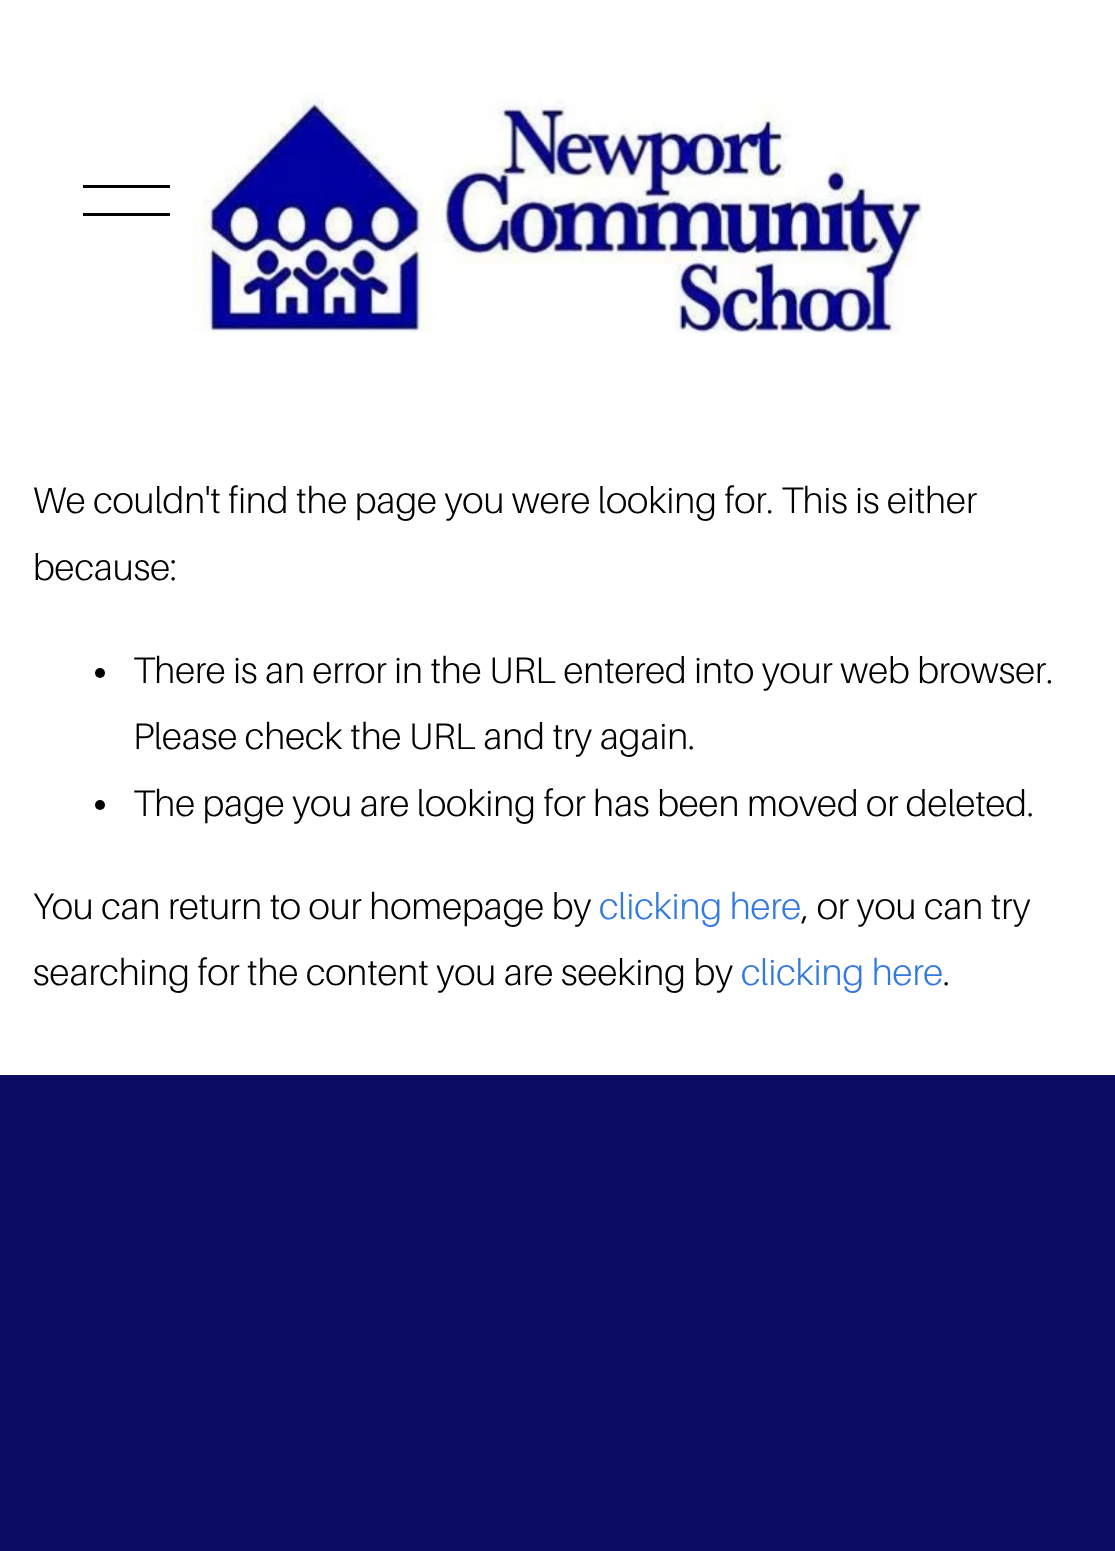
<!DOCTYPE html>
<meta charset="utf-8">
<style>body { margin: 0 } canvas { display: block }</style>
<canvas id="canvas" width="1115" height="1551"></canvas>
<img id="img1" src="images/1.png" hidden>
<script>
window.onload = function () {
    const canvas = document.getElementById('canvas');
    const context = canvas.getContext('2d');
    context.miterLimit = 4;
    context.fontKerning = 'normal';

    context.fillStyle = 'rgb(255, 255, 255)';
    context.fillRect(0, 0, 1115, 1551);
    context.fillStyle = 'rgb(0, 0, 0)';
    context.fillRect(83, 185, 87, 3);
    context.fillRect(83, 213, 87, 3);
    context.drawImage(document.getElementById('img1'), 192, 93, 731, 240);
    context.beginPath();
    context.arc(100, 673, 5, 0, 2 * Math.PI);
    context.fill();
    context.beginPath();
    context.arc(100, 805, 5, 0, 2 * Math.PI);
    context.fill();
    context.fillStyle = 'rgb(11, 13, 99)';
    context.fillRect(0, 1075, 1115, 476);
    context.font = '300 36.85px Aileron';
    context.fillStyle = 'rgb(0, 0, 0)';
    context.fillText('We couldn\'t find the page you were looking for. This is either', 33, 513);
    context.fillText('because:', 33, 580);
    context.fillText('There is an error in the URL entered into your web browser.', 133, 683);
    context.fillText('Please check the URL and try again.', 133, 749);
    context.fillText('The page you are looking for has been moved or deleted.', 133, 816);
    context.fillText('You can return to our homepage by', 33, 919);
    context.fillStyle = 'rgb(50, 121, 224)';
    context.fillText('clicking here', 599, 919);
    context.fillStyle = 'rgb(0, 0, 0)';
    context.fillText(', or you can try', 802, 919);
    context.fillText('searching for the content you are seeking by', 33, 985);
    context.fillStyle = 'rgb(50, 121, 224)';
    context.fillText('clicking here', 741, 985);
    context.fillStyle = 'rgb(0, 0, 0)';
    context.fillText('.', 943, 985);
};
</script>
